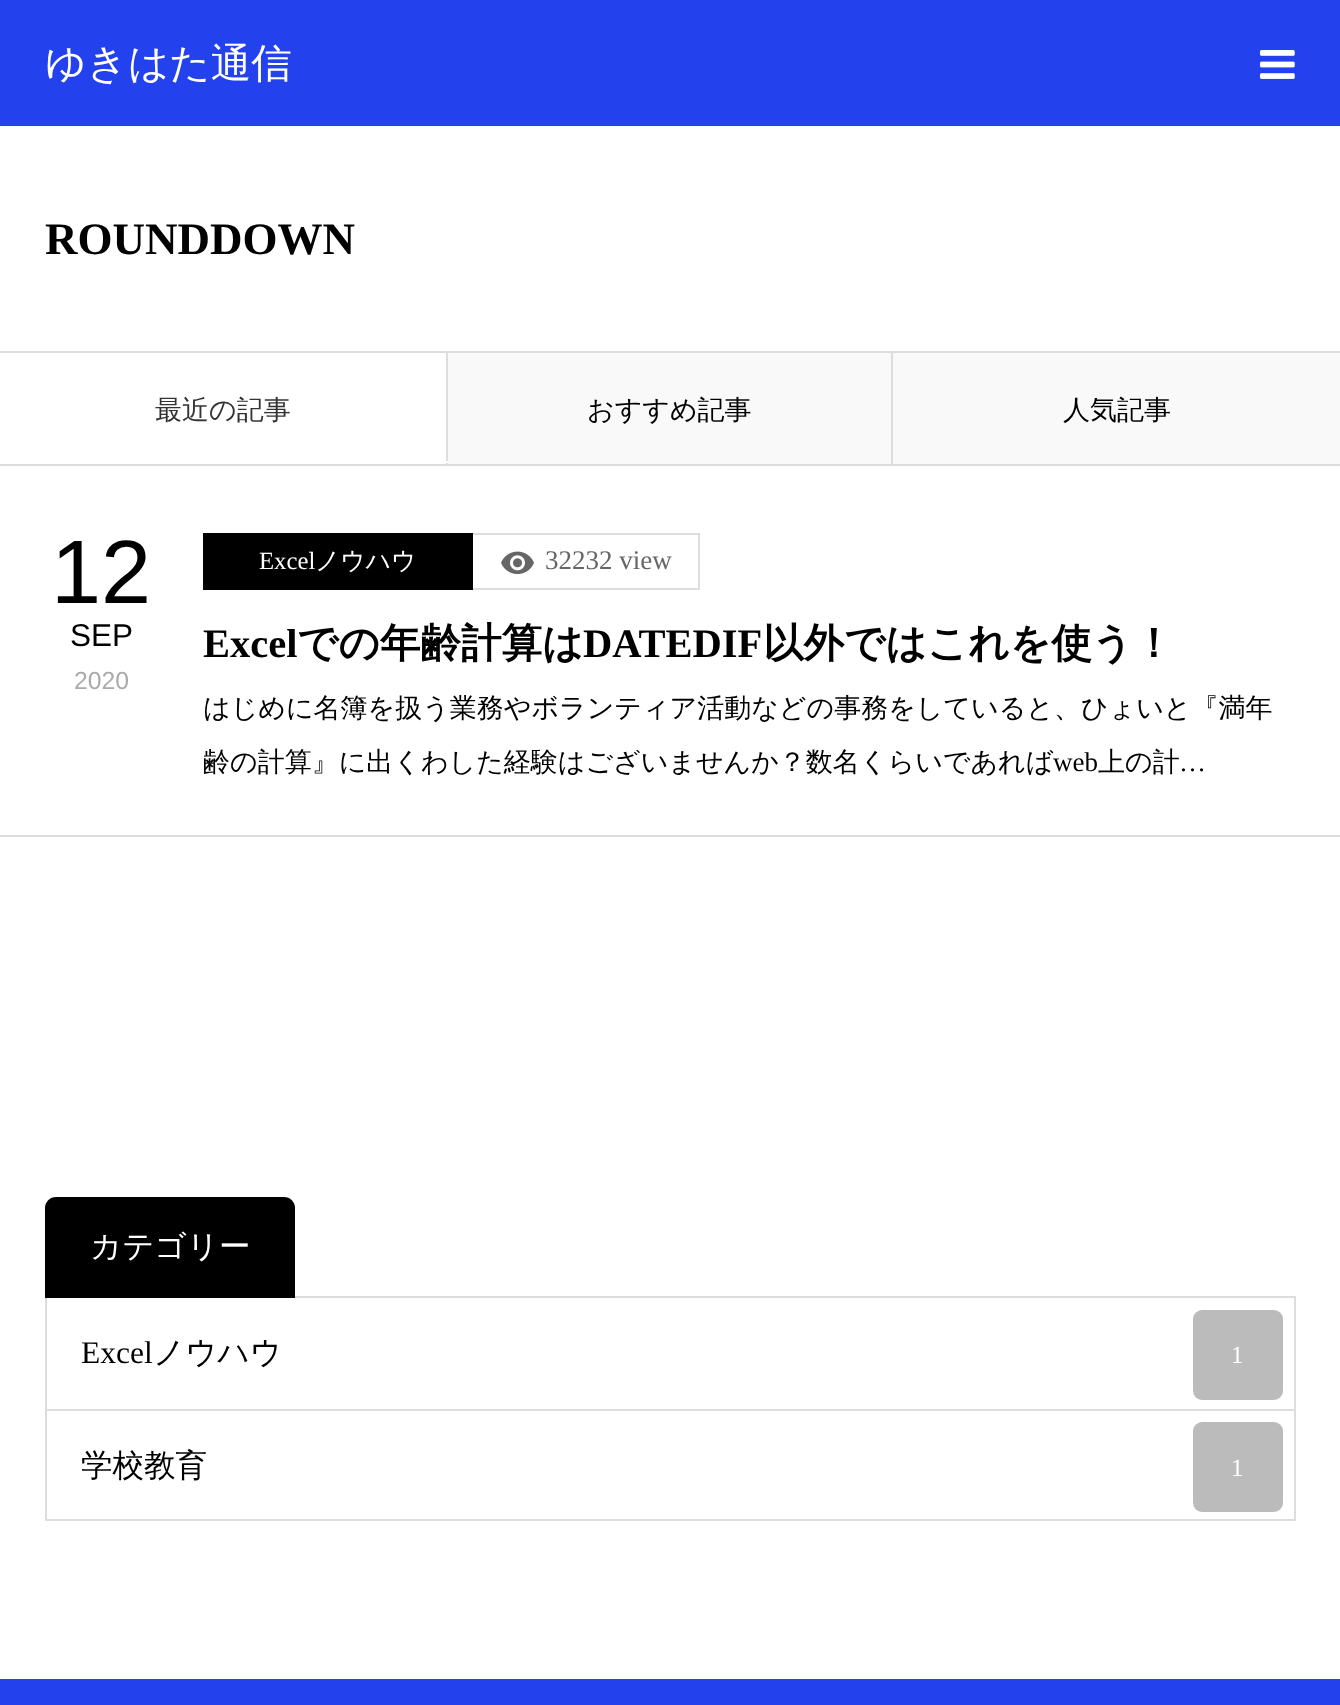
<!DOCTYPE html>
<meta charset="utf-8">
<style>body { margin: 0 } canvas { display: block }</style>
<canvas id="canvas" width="1340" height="1705"></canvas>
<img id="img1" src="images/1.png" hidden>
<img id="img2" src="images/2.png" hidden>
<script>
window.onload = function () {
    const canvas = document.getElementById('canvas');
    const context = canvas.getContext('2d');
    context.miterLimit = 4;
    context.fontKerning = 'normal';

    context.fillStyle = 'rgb(255, 255, 255)';
    context.fillRect(0, 0, 1340, 1705);
    context.fillStyle = 'rgb(35, 65, 237)';
    context.fillRect(0, 0, 1340, 126);
    context.drawImage(document.getElementById('img1'), 1260, 50, 35, 29);
    context.fillStyle = 'rgb(221, 221, 221)';
    context.fillRect(0, 351, 1340, 2);
    context.fillStyle = 'rgb(249, 249, 249)';
    context.fillRect(448, 353, 892, 111);
    context.fillStyle = 'rgb(221, 221, 221)';
    context.fillRect(0, 464, 1340, 2);
    context.fillRect(446, 351, 2, 113);
    context.fillStyle = 'rgb(255, 255, 255)';
    context.fillRect(446, 461, 2, 2);
    context.fillStyle = 'rgb(221, 221, 221)';
    context.fillRect(891, 351, 2, 113);
    context.fillRect(0, 835, 1340, 2);
    context.strokeStyle = 'rgb(221, 221, 221)';
    context.lineWidth = 2;
    context.strokeRect(471, 534, 228, 55);
    context.fillStyle = 'rgb(0, 0, 0)';
    context.fillRect(203, 533, 270, 57);
    context.drawImage(document.getElementById('img2'), 501, 551, 33, 24);
    context.beginPath();
    context.roundRect(45, 1197, 250, 101, [11, 11, 0, 0]);
    context.fill();
    context.fillStyle = 'rgb(221, 221, 221)';
    context.fillRect(295, 1296, 1001, 2);
    context.fillRect(1294, 1298, 2, 113);
    context.fillRect(45, 1298, 2, 113);
    context.fillStyle = 'rgb(187, 187, 187)';
    context.beginPath();
    context.roundRect(1193, 1310, 90, 90, 9);
    context.fill();
    context.strokeRect(46, 1410, 1249, 110);
    context.beginPath();
    context.roundRect(1193, 1422, 90, 90, 9);
    context.fill();
    context.fillStyle = 'rgb(35, 65, 237)';
    context.fillRect(0, 1679, 1340, 26);
    context.font = '500 40.5px WenQuanYi Zen Hei';
    context.fillStyle = 'rgb(255, 255, 255)';
    context.fillText('ゆきはた通信', 45, 77);
    context.font = 'bold 45px Liberation Serif';
    context.fillStyle = 'rgb(0, 0, 0)';
    context.fillText('ROUNDDOWN', 45, 254);
    context.font = '500 27px WenQuanYi Zen Hei';
    context.fillStyle = 'rgb(51, 51, 51)';
    context.fillText('最近の記事', 155, 419);
    context.fillStyle = 'rgb(0, 0, 0)';
    context.fillText('おすすめ記事', 587, 419);
    context.fillText('人気記事', 1063, 419);
    context.font = '90px Liberation Sans';
    context.fillText('12', 51, 603);
    context.font = '31.5px Liberation Sans';
    context.fillText('SEP', 70, 646);
    context.font = '24.75px Liberation Sans';
    context.fillStyle = 'rgb(170, 170, 170)';
    context.fillText('2020', 74, 689);
    context.font = '24.75px Liberation Serif';
    context.fillStyle = 'rgb(255, 255, 255)';
    context.fillText('Excel', 259, 569);
    context.font = '500 24.75px WenQuanYi Zen Hei';
    context.fillText('ノウハウ', 315, 569);
    context.font = '27px Liberation Serif';
    context.fillStyle = 'rgb(102, 102, 102)';
    context.fillText('32232 view', 545, 569);
    context.font = 'bold 40.5px Liberation Serif';
    context.fillStyle = 'rgb(0, 0, 0)';
    context.fillText('Excel', 203, 657);
    context.font = 'bold 40.5px WenQuanYi Zen Hei';
    context.fillText('での年齢計算は', 297, 657);
    context.font = 'bold 40.5px Liberation Serif';
    context.fillText('DATEDIF', 583, 657);
    context.font = 'bold 40.5px WenQuanYi Zen Hei';
    context.fillText('以外ではこれを使う！', 763, 657);
    context.font = '500 27px WenQuanYi Zen Hei';
    context.fillText('はじめに名簿を扱う業務やボランティア活動などの事務をしていると、ひょいと『満年', 203, 717);
    context.fillText('齢の計算』に出くわした経験はございませんか？数名くらいであれば', 203, 771);
    context.font = '27px Liberation Serif';
    context.fillText('web', 1053, 771);
    context.font = '500 27px WenQuanYi Zen Hei';
    context.fillText('上の計', 1098, 771);
    context.font = '27px Liberation Serif';
    context.fillText('…', 1179, 771);
    context.font = '500 31.5px WenQuanYi Zen Hei';
    context.fillStyle = 'rgb(255, 255, 255)';
    context.fillText('カテゴリー', 90, 1257);
    context.font = '31.5px Liberation Serif';
    context.fillStyle = 'rgb(0, 0, 0)';
    context.fillText('Excel', 81, 1363);
    context.font = '500 31.5px WenQuanYi Zen Hei';
    context.fillText('ノウハウ', 153, 1363);
    context.font = '24.75px Liberation Serif';
    context.fillStyle = 'rgb(255, 255, 255)';
    context.fillText('1', 1231, 1363);
    context.font = '500 31.5px WenQuanYi Zen Hei';
    context.fillStyle = 'rgb(0, 0, 0)';
    context.fillText('学校教育', 81, 1476);
    context.font = '24.75px Liberation Serif';
    context.fillStyle = 'rgb(255, 255, 255)';
    context.fillText('1', 1231, 1476);
};
</script>
